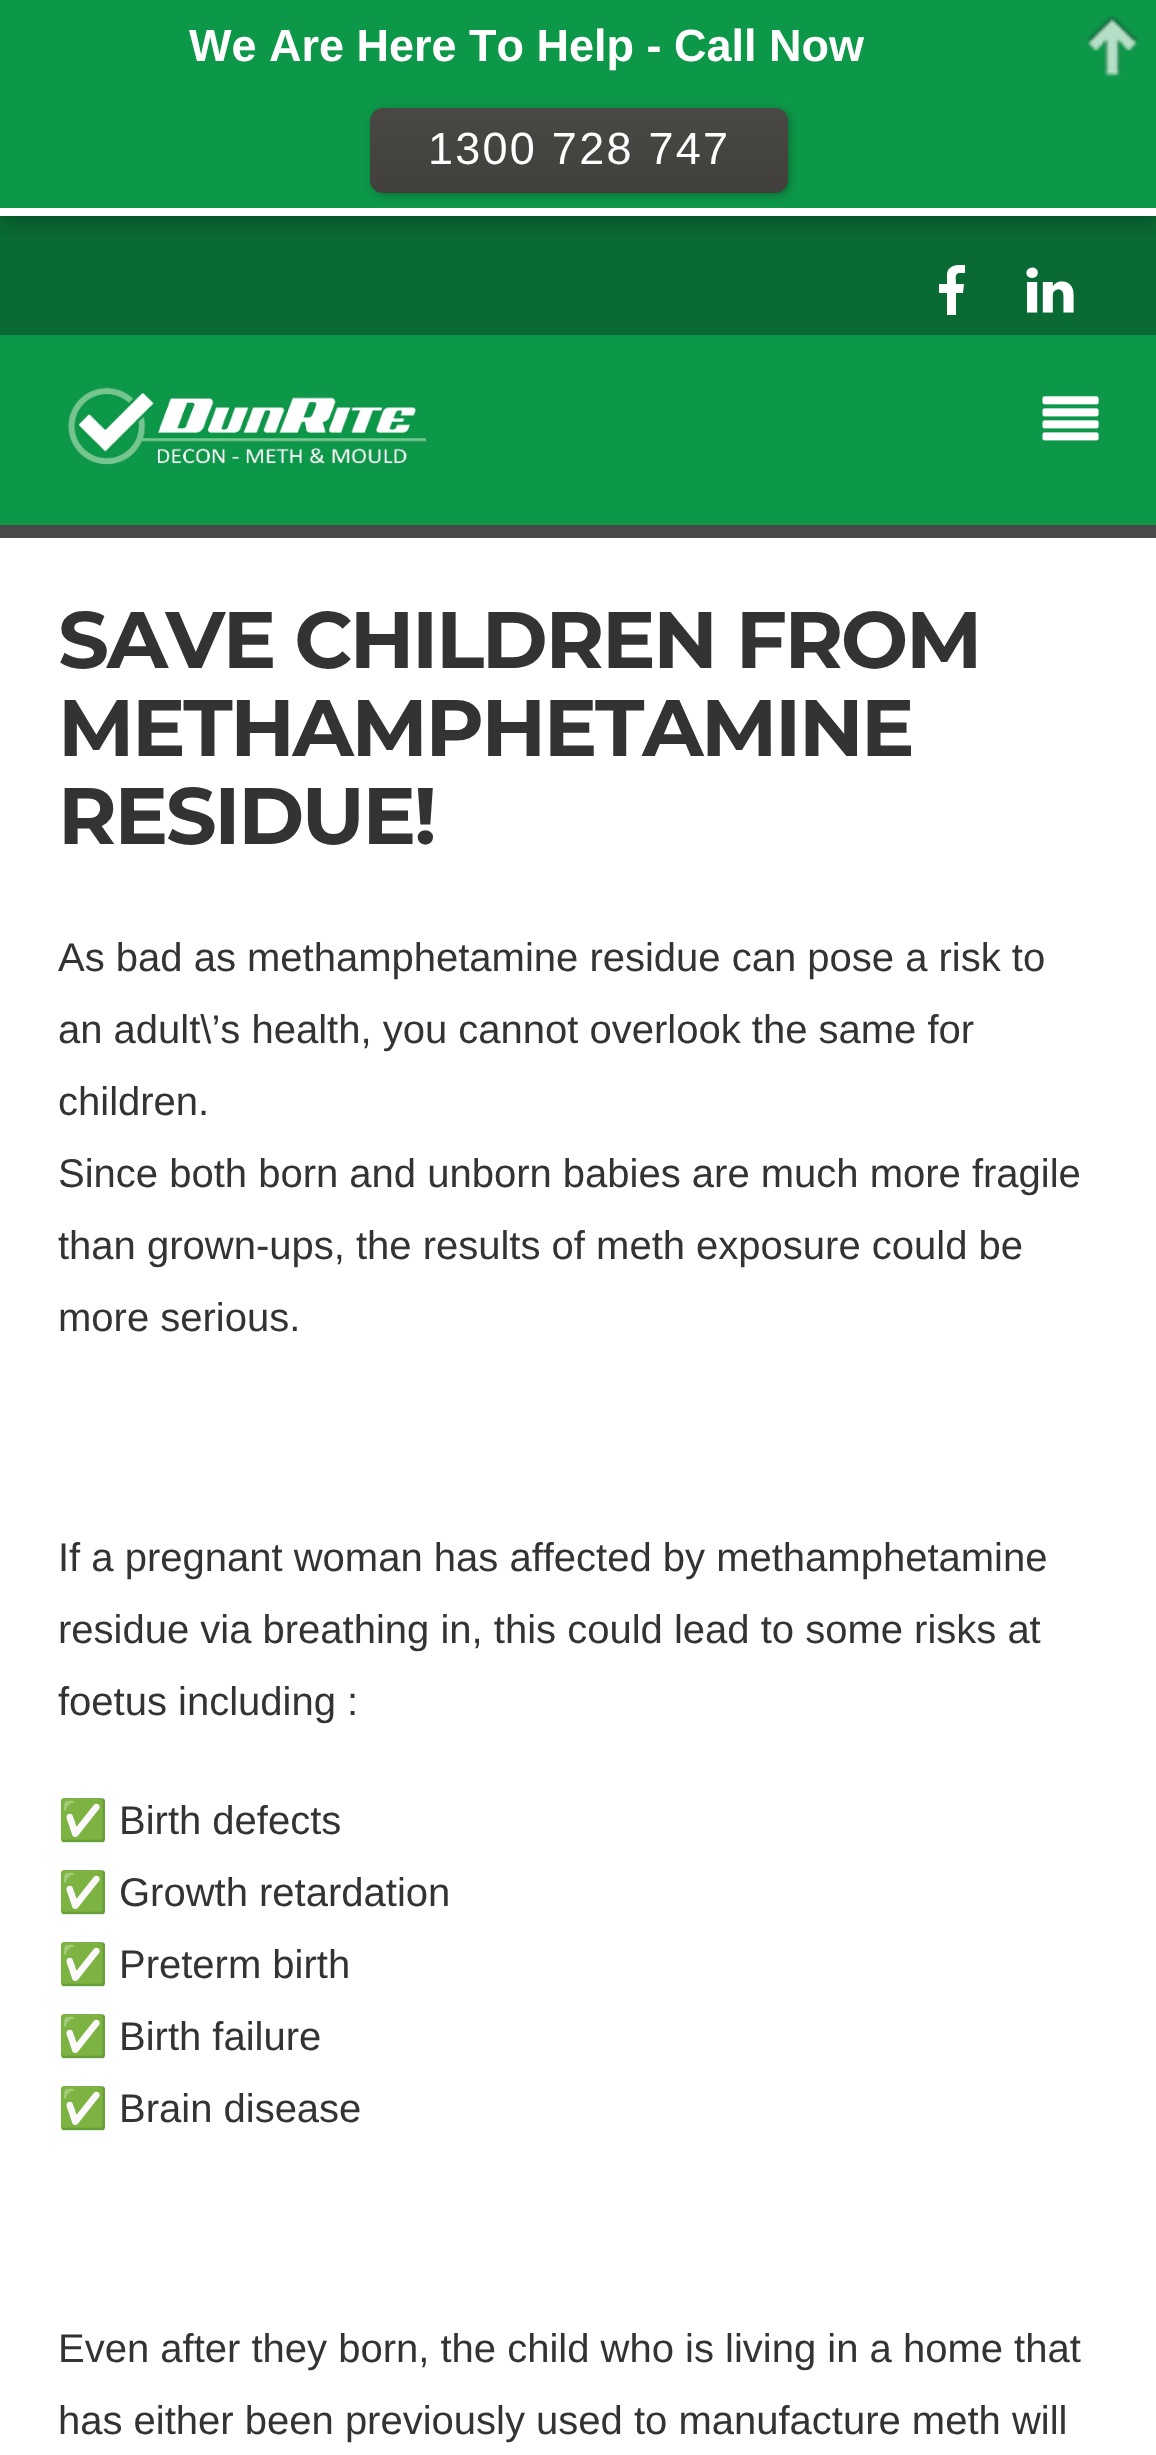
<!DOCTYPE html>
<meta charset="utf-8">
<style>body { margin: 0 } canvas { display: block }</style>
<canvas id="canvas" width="1156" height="2455"></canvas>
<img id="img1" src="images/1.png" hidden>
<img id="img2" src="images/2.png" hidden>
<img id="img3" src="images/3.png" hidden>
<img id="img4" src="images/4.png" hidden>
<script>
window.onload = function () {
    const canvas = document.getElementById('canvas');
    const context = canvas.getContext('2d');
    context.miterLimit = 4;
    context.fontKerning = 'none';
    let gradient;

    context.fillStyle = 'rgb(13, 151, 73)';
    context.fillRect(0, 0, 1156, 2455);
    context.fillStyle = 'rgb(9, 106, 51)';
    context.fillRect(0, 216, 1156, 119);
    context.save();
    context.beginPath();
    context.rect(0, 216, 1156, 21);
    context.clip();
    context.fillStyle = 'rgba(0, 0, 0, 0.4)';
    context.filter = 'blur(13.5px)';
    context.beginPath();
    context.rect(0, 0, 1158, 215);
    context.fill();
    context.filter = 'none';
    context.restore();
    context.fillStyle = 'rgb(255, 255, 255)';
    context.fillRect(0, 208, 1156, 8);
    context.drawImage(document.getElementById('img1'), 1086, 15, 53, 62);
    context.fillStyle = 'rgba(0, 0, 0, 0.28)';
    context.filter = 'blur(4px)';
    context.beginPath();
    context.roundRect(373, 110, 417, 85, 13);
    context.fill();
    context.filter = 'none';
    context.fillStyle = 'rgb(74, 72, 68)';
    context.beginPath();
    context.roundRect(370, 108, 418, 85, 13);
    context.fill();
    gradient = context.createLinearGradient(370, 108, 370, 193);
    gradient.addColorStop(0, 'rgba(51, 51, 51, 0)');
    gradient.addColorStop(1, 'rgba(51, 51, 51, 0.4)');
    context.fillStyle = gradient;
    context.beginPath();
    context.roundRect(370, 108, 418, 85, 13);
    context.fill();
    context.save();
    context.beginPath();
    context.rect(928, 265, 50, 50);
    context.clip();
    context.fillStyle = 'rgb(255, 255, 255)';
    context.beginPath();
    context.moveTo(960, 273);
    context.bezierCurveTo(954, 273, 956, 280, 956, 284);
    context.lineTo(964, 284);
    context.lineTo(963, 293);
    context.lineTo(956, 293);
    context.lineTo(956, 315);
    context.lineTo(947, 315);
    context.lineTo(947, 293);
    context.lineTo(939, 293);
    context.lineTo(939, 284);
    context.lineTo(947, 284);
    context.lineTo(947, 274);
    context.bezierCurveTo(948, 265, 958, 264, 965, 265);
    context.lineTo(965, 273);
    context.closePath();
    context.fill();
    context.restore();
    context.drawImage(document.getElementById('img2'), 1026, 267, 48, 46);
    context.drawImage(document.getElementById('img3'), 68, 387, 359, 78);
    context.drawImage(document.getElementById('img4'), 1042, 396, 57, 45);
    context.fillStyle = 'rgb(74, 74, 77)';
    context.fillRect(0, 525, 1156, 13);
    context.fillStyle = 'rgb(255, 255, 255)';
    context.fillRect(0, 538, 1156, 1917);
    context.font = 'bold 45px Liberation Sans';
    context.fillText('We Are Here To Help - Call Now', 189, 61);
    context.letterSpacing = '2.25px';
    context.font = '45px Liberation Sans';
    context.fillText('1300 728 747', 428, 164);
    context.letterSpacing = '-2.4px';
    context.font = 'bold 80px Montserrat';
    context.fillStyle = 'rgb(51, 51, 51)';
    context.fillText('SAVE CHILDREN FROM', 58, 668);
    context.fillText('METHAMPHETAMINE', 58, 756);
    context.fillText('RESIDUE!', 58, 844);
    context.letterSpacing = '0px';
    context.font = '40px Liberation Sans';
    context.fillText('As bad as methamphetamine residue can pose a risk to', 58, 971);
    context.fillText('an adult\\’s health, you cannot overlook the same for', 58, 1043);
    context.fillText('children.', 58, 1115);
    context.fillText('Since both born and unborn babies are much more fragile', 58, 1187);
    context.fillText('than grown-ups, the results of meth exposure could be', 58, 1259);
    context.fillText('more serious.', 58, 1331);
    context.fillText('If a pregnant woman has affected by methamphetamine', 58, 1571);
    context.fillText('residue via breathing in, this could lead to some risks at', 58, 1643);
    context.fillText('foetus including :', 58, 1715);
    context.font = '40px Noto Color Emoji';
    context.fillText('✅', 58, 1834);
    context.font = '40px Liberation Sans';
    context.fillText('Birth defects', 119, 1834);
    context.font = '40px Noto Color Emoji';
    context.fillText('✅', 58, 1906);
    context.font = '40px Liberation Sans';
    context.fillText('Growth retardation', 119, 1906);
    context.font = '40px Noto Color Emoji';
    context.fillText('✅', 58, 1978);
    context.font = '40px Liberation Sans';
    context.fillText('Preterm birth', 119, 1978);
    context.font = '40px Noto Color Emoji';
    context.fillText('✅', 58, 2050);
    context.font = '40px Liberation Sans';
    context.fillText('Birth failure', 119, 2050);
    context.font = '40px Noto Color Emoji';
    context.fillText('✅', 58, 2122);
    context.font = '40px Liberation Sans';
    context.fillText('Brain disease', 119, 2122);
    context.fillText('Even after they born, the child who is living in a home that', 58, 2362);
    context.fillText('has either been previously used to manufacture meth will', 58, 2434);
};
</script>
